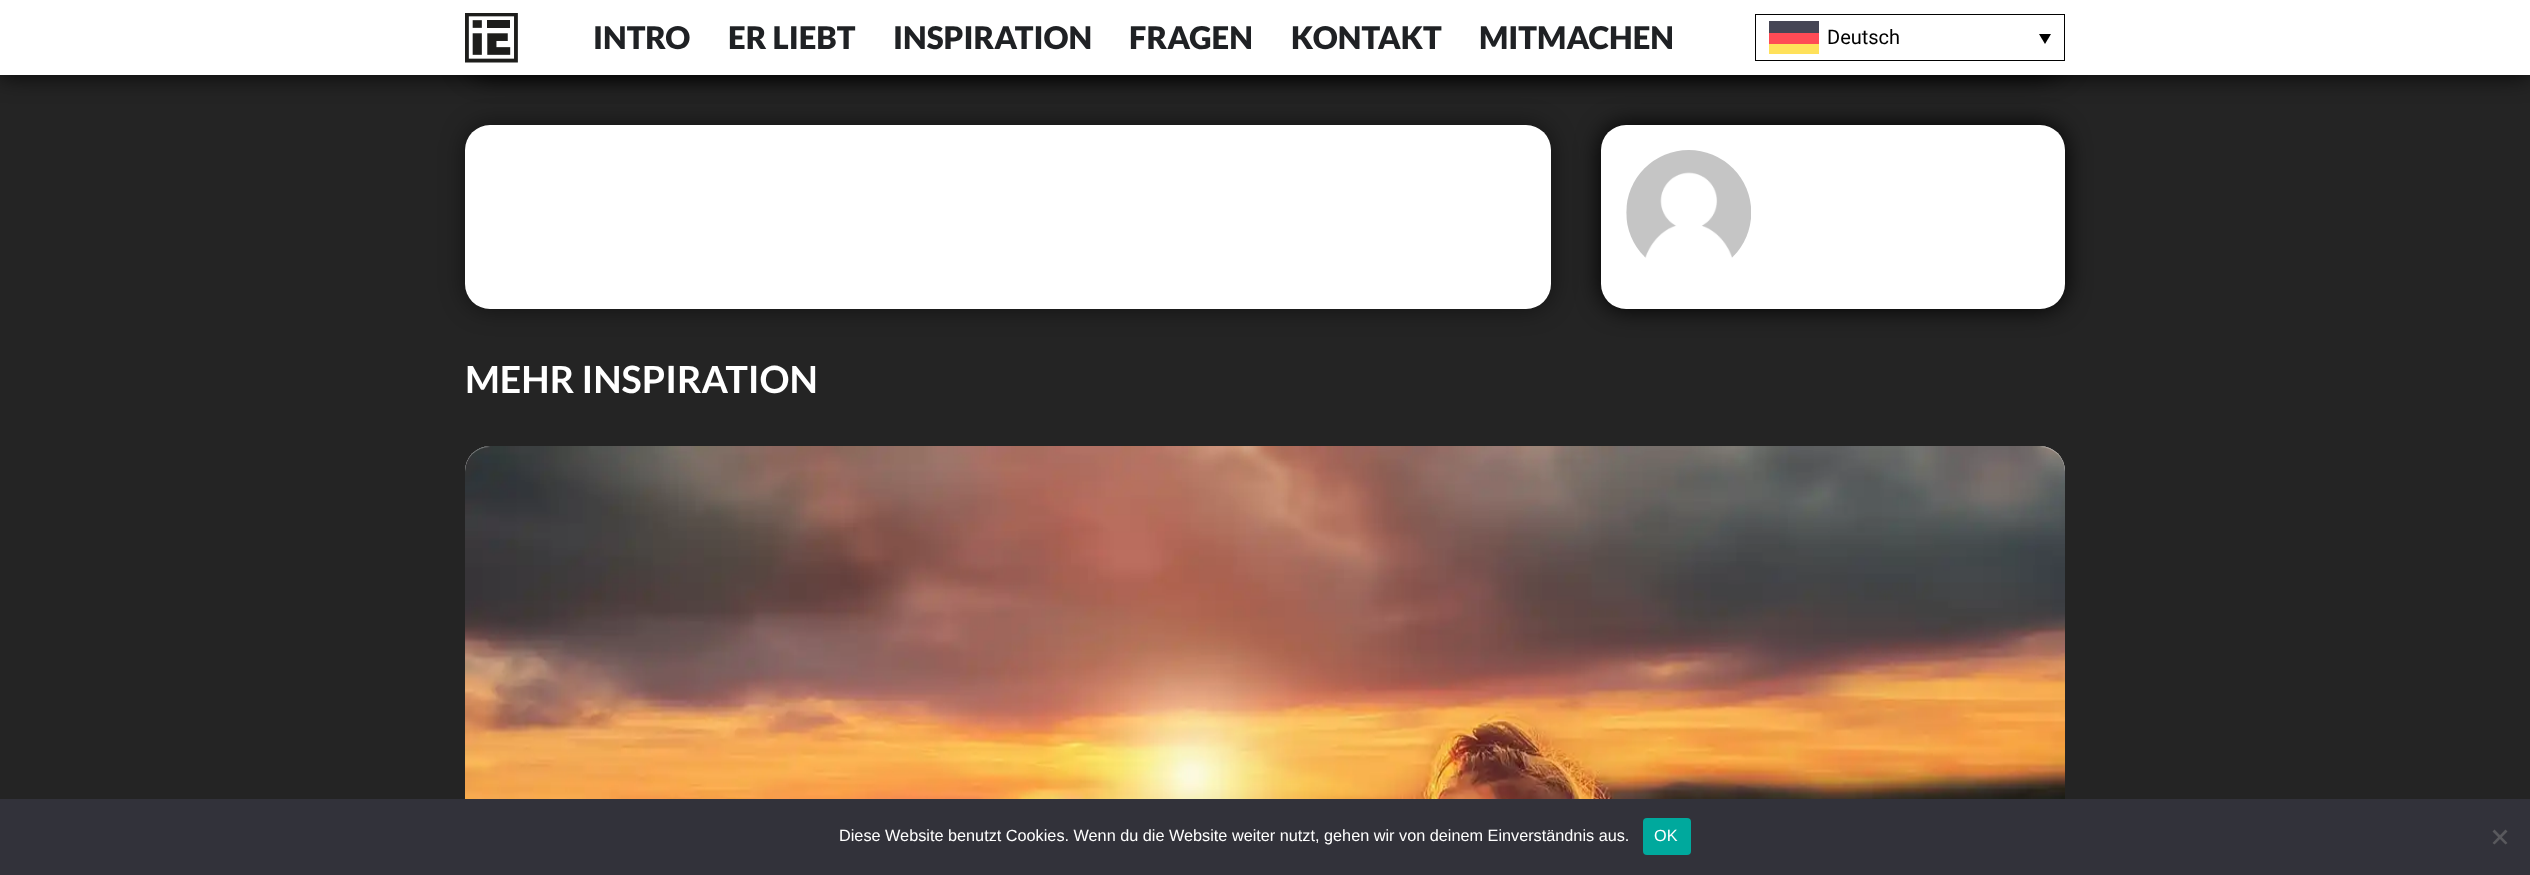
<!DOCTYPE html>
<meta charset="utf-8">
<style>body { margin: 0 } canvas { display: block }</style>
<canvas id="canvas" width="2530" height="875"></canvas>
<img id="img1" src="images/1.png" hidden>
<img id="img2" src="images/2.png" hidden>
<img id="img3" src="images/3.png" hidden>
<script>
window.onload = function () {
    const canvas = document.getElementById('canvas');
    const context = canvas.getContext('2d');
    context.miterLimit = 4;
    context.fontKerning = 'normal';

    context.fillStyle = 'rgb(36, 36, 36)';
    context.fillRect(0, 0, 2530, 875);
    context.fillStyle = 'rgba(0, 0, 0, 0.9)';
    context.filter = 'blur(12.5px)';
    context.beginPath();
    context.rect(0, 0, 2530, 75);
    context.fill();
    context.filter = 'none';
    context.fillStyle = 'rgb(0, 0, 0)';
    context.filter = 'blur(12.5px)';
    context.beginPath();
    context.roundRect(465, 13, 1600, 62, 25);
    context.fill();
    context.filter = 'none';
    context.fillStyle = 'rgb(255, 255, 255)';
    context.fillRect(0, 0, 2530, 75);
    context.drawImage(document.getElementById('img1'), 465, 13, 53, 50);
    context.strokeStyle = 'rgb(2, 2, 2)';
    context.strokeRect(1755.5, 14.5, 309, 46);
    context.fillStyle = 'rgb(70, 70, 85)';
    context.fillRect(1769, 21, 50, 12);
    context.fillStyle = 'rgb(255, 75, 85)';
    context.fillRect(1769, 33, 50, 11);
    context.fillStyle = 'rgb(0, 0, 0)';
    context.beginPath();
    context.moveTo(2039, 34);
    context.lineTo(2051, 34);
    context.lineTo(2045, 44);
    context.closePath();
    context.fill();
    context.fillStyle = 'rgb(255, 225, 90)';
    context.fillRect(1769, 44, 50, 10);
    context.fillStyle = 'rgba(0, 0, 0, 0.5)';
    context.filter = 'blur(12.5px)';
    context.beginPath();
    context.roundRect(465, 125, 1086, 184, 25);
    context.fill();
    context.filter = 'none';
    context.fillStyle = 'rgb(255, 255, 255)';
    context.beginPath();
    context.roundRect(465, 125, 1086, 184, 25);
    context.fill();
    context.fillStyle = 'rgb(0, 0, 0)';
    context.filter = 'blur(12.5px)';
    context.beginPath();
    context.roundRect(1601, 125, 464, 184, 25);
    context.fill();
    context.filter = 'none';
    context.fillStyle = 'rgb(255, 255, 255)';
    context.beginPath();
    context.roundRect(1601, 125, 464, 184, 25);
    context.fill();
    context.drawImage(document.getElementById('img2'), 1626, 150, 125, 108);
    context.beginPath();
    context.roundRect(465, 446, 1600, 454, 25);
    context.fill();
    context.drawImage(document.getElementById('img3'), 465, 446, 1600, 353);
    context.fillStyle = 'rgb(50, 50, 58)';
    context.fillRect(0, 799, 2530, 76);
    context.fillStyle = 'rgb(0, 169, 157)';
    context.beginPath();
    context.roundRect(1643, 818, 48, 37, 4);
    context.fill();
    context.fillStyle = 'rgb(89, 89, 93)';
    context.beginPath();
    context.moveTo(2505.5, 829.5);
    context.lineTo(2507.5, 831.5);
    context.lineTo(2494.5, 844.5);
    context.lineTo(2492.5, 843);
    context.closePath();
    context.fill();
    context.beginPath();
    context.moveTo(2492.5, 831.5);
    context.lineTo(2494.5, 829.5);
    context.lineTo(2507.5, 843);
    context.lineTo(2505.5, 844.5);
    context.closePath();
    context.fill();
    context.font = '900 31.25px Lato';
    context.fillStyle = 'rgb(31, 33, 36)';
    context.fillText('INTRO', 593, 49);
    context.fillText('ER LIEBT', 728, 49);
    context.fillText('INSPIRATION', 893, 49);
    context.fillText('FRAGEN', 1129, 49);
    context.fillText('KONTAKT', 1291, 49);
    context.fillText('MITMACHEN', 1479, 49);
    context.font = '20px Roboto';
    context.fillStyle = 'rgb(0, 0, 0)';
    context.fillText('Deutsch', 1827, 44);
    context.font = 'bold 37.5px Lato';
    context.fillStyle = 'rgb(255, 255, 255)';
    context.fillText('MEHR INSPIRATION', 465, 393);
    context.font = '16.25px Liberation Sans';
    context.fillText('Diese Website benutzt Cookies. Wenn du die Website weiter nutzt, gehen wir von deinem Einverständnis aus.', 839, 841);
    context.fillText('OK', 1654, 841);
};
</script>
